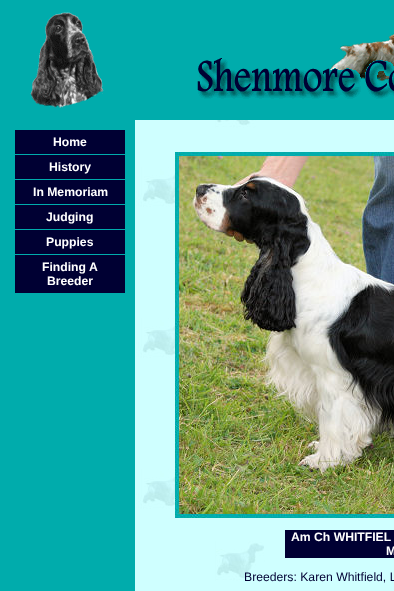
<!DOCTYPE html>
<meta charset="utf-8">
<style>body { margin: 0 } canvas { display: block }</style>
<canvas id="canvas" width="394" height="591"></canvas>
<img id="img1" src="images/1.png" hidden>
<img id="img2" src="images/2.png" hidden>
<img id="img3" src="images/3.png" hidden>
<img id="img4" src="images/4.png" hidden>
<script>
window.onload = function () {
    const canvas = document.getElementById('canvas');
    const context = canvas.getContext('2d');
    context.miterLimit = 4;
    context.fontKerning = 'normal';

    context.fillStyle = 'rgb(255, 255, 255)';
    context.fillRect(0, 0, 394, 591);
    context.drawImage(document.getElementById('img1'), 135, 120, 259, 471);
    context.fillStyle = 'rgb(0, 172, 172)';
    context.fillRect(0, 0, 394, 120);
    context.drawImage(document.getElementById('img2'), 30, 12, 74, 96);
    context.drawImage(document.getElementById('img3'), 197, 33, 197, 66);
    context.fillRect(0, 120, 135, 471);
    context.fillStyle = 'rgb(0, 0, 51)';
    context.fillRect(15, 130, 110, 24);
    context.fillRect(15, 155, 110, 24);
    context.fillRect(15, 180, 110, 24);
    context.fillRect(15, 205, 110, 24);
    context.fillRect(15, 230, 110, 24);
    context.fillRect(15, 255, 110, 38);
    context.drawImage(document.getElementById('img4'), 175, 152, 219, 366);
    context.fillRect(285, 530, 109, 28);
    context.font = 'bold 12.2px Liberation Sans';
    context.fillStyle = 'rgb(255, 255, 255)';
    context.fillText('Home', 53, 146);
    context.fillText('History', 49, 171);
    context.fillText('In Memoriam', 33, 196);
    context.fillText('Judging', 46, 221);
    context.fillText('Puppies', 46, 246);
    context.fillText('Finding A', 42, 271);
    context.fillText('Breeder', 47, 285);
    context.fillText('Am Ch WHITFIEL', 291, 541);
    context.fillText('M', 386, 555);
    context.font = '12.2px Liberation Sans';
    context.fillStyle = 'rgb(0, 0, 51)';
    context.fillText('Breeders: Karen Whitfield, L', 244, 581);
};
</script>
